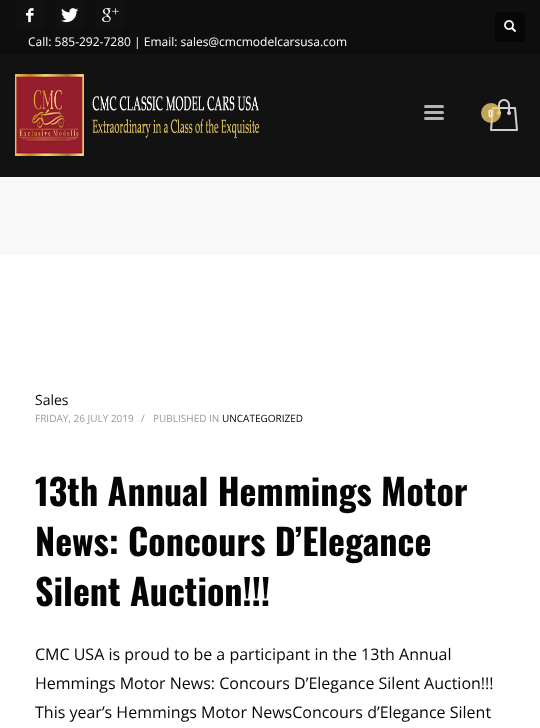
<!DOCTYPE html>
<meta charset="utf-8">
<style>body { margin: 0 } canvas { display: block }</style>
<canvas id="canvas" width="540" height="728"></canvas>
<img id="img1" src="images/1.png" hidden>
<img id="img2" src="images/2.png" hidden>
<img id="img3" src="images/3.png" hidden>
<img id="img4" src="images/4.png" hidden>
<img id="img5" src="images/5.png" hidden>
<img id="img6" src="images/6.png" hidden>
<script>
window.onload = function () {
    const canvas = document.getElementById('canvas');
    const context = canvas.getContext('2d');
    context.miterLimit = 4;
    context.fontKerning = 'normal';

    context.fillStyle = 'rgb(255, 255, 255)';
    context.fillRect(0, 0, 540, 728);
    context.fillStyle = 'rgb(18, 18, 18)';
    context.fillRect(0, 54, 540, 123);
    context.fillStyle = 'rgb(14, 14, 14)';
    context.fillRect(0, 0, 540, 54);
    context.fillStyle = 'rgb(17, 17, 17)';
    context.beginPath();
    context.roundRect(15, 0, 30, 30, 3);
    context.fill();
    context.drawImage(document.getElementById('img1'), 26, 8, 8, 15);
    context.beginPath();
    context.roundRect(55, 0, 30, 30, 3);
    context.fill();
    context.drawImage(document.getElementById('img2'), 61, 8, 18, 15);
    context.beginPath();
    context.roundRect(95, 0, 30, 30, 3);
    context.fill();
    context.drawImage(document.getElementById('img3'), 102, 8, 17, 15);
    context.fillStyle = 'rgb(7, 7, 7)';
    context.beginPath();
    context.roundRect(495, 12, 30, 30, 2);
    context.fill();
    context.drawImage(document.getElementById('img4'), 504, 20, 12, 12);
    context.drawImage(document.getElementById('img5'), 15, 74, 245, 82);
    context.fillStyle = 'rgb(180, 180, 180)';
    context.beginPath();
    context.roundRect(424, 105, 20, 3, 1.5);
    context.fill();
    context.beginPath();
    context.roundRect(424, 111, 20, 3, 1.5);
    context.fill();
    context.beginPath();
    context.roundRect(424, 117, 20, 3, 1.5);
    context.fill();
    context.drawImage(document.getElementById('img6'), 490, 99, 28, 32);
    context.fillStyle = 'rgba(237, 204, 107, 0.8)';
    context.beginPath();
    context.arc(491, 113, 10, 0, 2 * Math.PI);
    context.fill();
    context.fillStyle = 'rgb(248, 248, 248)';
    context.fillRect(0, 177, 540, 78);
    context.font = '12px Open Sans';
    context.fillStyle = 'rgb(255, 255, 255)';
    context.fillText('Call: 585-292-7280 | Email: sales@cmcmodelcarsusa.com', 28, 46);
    context.font = 'bold 9px Oswald';
    context.fillStyle = 'rgb(245, 239, 224)';
    context.fillText('0', 488, 117);
    context.font = '14px Open Sans';
    context.fillStyle = 'rgb(5, 5, 5)';
    context.fillText('Sales', 35, 405);
    context.font = '10px Open Sans';
    context.fillStyle = 'rgb(154, 154, 154)';
    context.fillText('FRIDAY, 26 JULY 2019', 35, 422);
    context.fillText('/', 141, 422);
    context.fillText('PUBLISHED IN', 153, 422);
    context.fillStyle = 'rgb(5, 5, 5)';
    context.fillText('UNCATEGORIZED', 222, 422);
    context.font = 'bold 36px Oswald';
    context.fillText('13th Annual Hemmings Motor', 35, 506);
    context.fillText('News: Concours D’Elegance', 35, 556);
    context.fillText('Silent Auction!!!', 35, 606);
    context.font = '16px Open Sans';
    context.fillText('CMC USA is proud to be a participant in the 13th Annual', 35, 660);
    context.fillText('Hemmings Motor News: Concours D’Elegance Silent Auction!!!', 35, 689);
    context.fillText('This year’s Hemmings Motor NewsConcours d’Elegance Silent', 35, 718);
};
</script>
